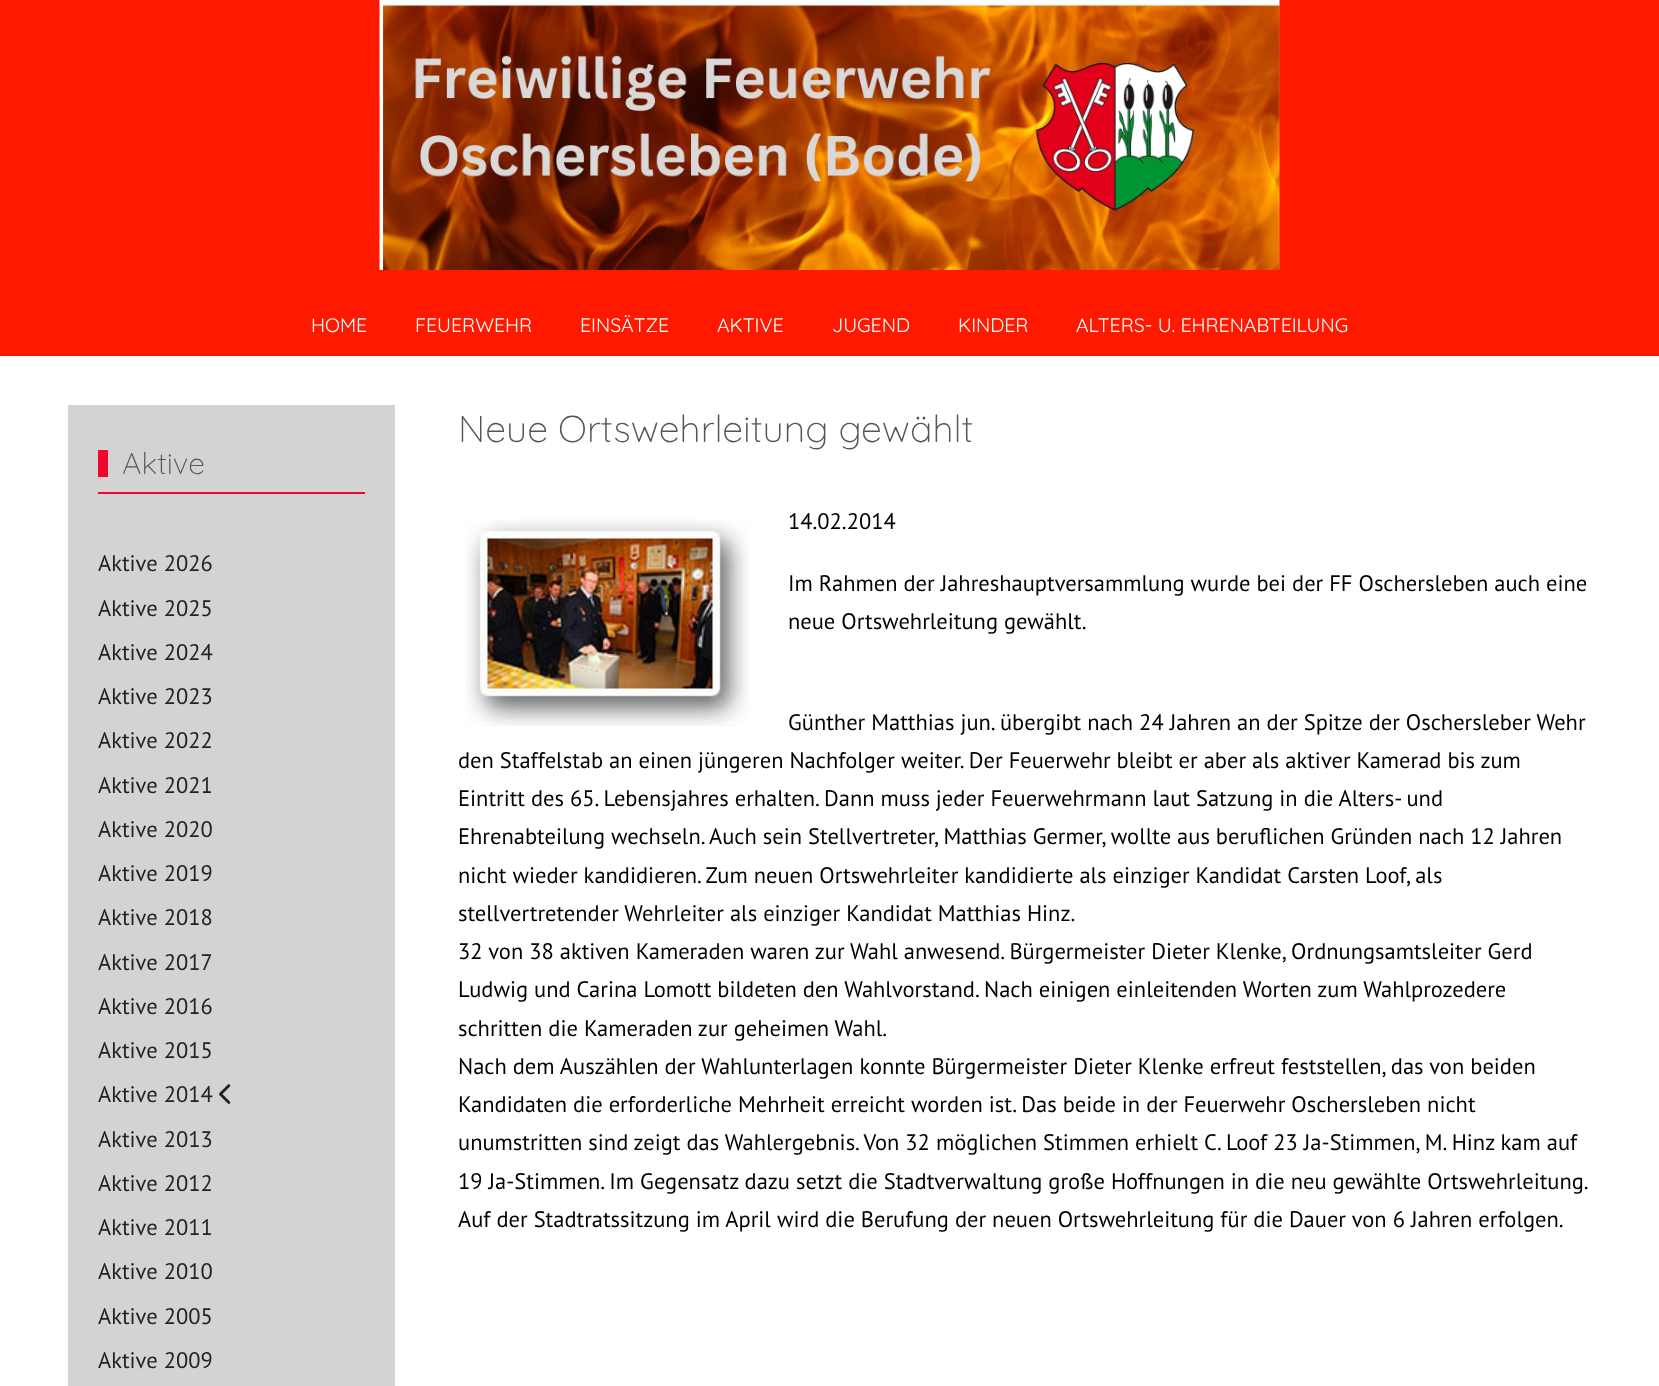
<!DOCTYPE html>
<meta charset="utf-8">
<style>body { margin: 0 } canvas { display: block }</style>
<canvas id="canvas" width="1659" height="1386"></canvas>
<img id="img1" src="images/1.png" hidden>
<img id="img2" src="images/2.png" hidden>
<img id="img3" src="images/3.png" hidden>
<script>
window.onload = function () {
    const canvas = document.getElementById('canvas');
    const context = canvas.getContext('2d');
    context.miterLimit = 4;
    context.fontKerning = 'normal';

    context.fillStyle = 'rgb(255, 255, 255)';
    context.fillRect(0, 0, 1659, 1386);
    context.fillStyle = 'rgb(255, 25, 0)';
    context.fillRect(0, 0, 1659, 356);
    context.drawImage(document.getElementById('img1'), 379, 0, 901, 270);
    context.fillStyle = 'rgb(211, 211, 211)';
    context.fillRect(68, 405, 327, 981);
    context.fillStyle = 'rgb(242, 7, 44)';
    context.fillRect(98, 492, 267, 2);
    context.fillRect(98, 450, 10, 27);
    context.drawImage(document.getElementById('img2'), 219, 1084, 12, 20);
    context.drawImage(document.getElementById('img3'), 465, 519, 285, 207);
    context.font = '300 19.5px "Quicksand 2"';
    context.fillStyle = 'rgb(255, 255, 255)';
    context.fillText('HOME', 311, 332);
    context.fillText('FEUERWEHR', 415, 332);
    context.fillText('EINSÄTZE', 580, 332);
    context.fillText('AKTIVE', 717, 332);
    context.fillText('JUGEND', 832, 332);
    context.fillText('KINDER', 958, 332);
    context.fillText('ALTERS- U. EHRENABTEILUNG', 1076, 332);
    context.font = '300 30px Quicksand';
    context.fillStyle = 'rgb(85, 85, 85)';
    context.fillText('Aktive', 122, 474);
    context.font = '22.5px PT Sans';
    context.fillStyle = 'rgb(34, 34, 34)';
    context.fillText('Aktive 2026', 98, 571);
    context.fillText('Aktive 2025', 98, 616);
    context.fillText('Aktive 2024', 98, 660);
    context.fillText('Aktive 2023', 98, 704);
    context.fillText('Aktive 2022', 98, 748);
    context.fillText('Aktive 2021', 98, 793);
    context.fillText('Aktive 2020', 98, 837);
    context.fillText('Aktive 2019', 98, 881);
    context.fillText('Aktive 2018', 98, 925);
    context.fillText('Aktive 2017', 98, 970);
    context.fillText('Aktive 2016', 98, 1014);
    context.fillText('Aktive 2015', 98, 1058);
    context.fillText('Aktive 2014', 98, 1102);
    context.fillText('Aktive 2013', 98, 1147);
    context.fillText('Aktive 2012', 98, 1191);
    context.fillText('Aktive 2011', 98, 1235);
    context.fillText('Aktive 2010', 98, 1279);
    context.fillText('Aktive 2005', 98, 1324);
    context.fillText('Aktive 2009', 98, 1368);
    context.font = '300 37.5px Quicksand';
    context.fillStyle = 'rgb(85, 85, 85)';
    context.fillText('Neue Ortswehrleitung gewählt', 458, 442);
    context.font = '22.5px PT Sans';
    context.fillStyle = 'rgb(0, 0, 0)';
    context.fillText('14.02.2014', 788, 529);
    context.fillText('Im Rahmen der Jahreshauptversammlung wurde bei der FF Oschersleben auch eine', 788, 591);
    context.fillText('neue Ortswehrleitung gewählt.', 788, 629);
    context.fillText('Günther Matthias jun. übergibt nach 24 Jahren an der Spitze der Oschersleber Wehr', 788, 730);
    context.fillText('den Staffelstab an einen jüngeren Nachfolger weiter. Der Feuerwehr bleibt er aber als aktiver Kamerad bis zum', 458, 768);
    context.fillText('Eintritt des 65. Lebensjahres erhalten. Dann muss jeder Feuerwehrmann laut Satzung in die Alters- und', 458, 806);
    context.fillText('Ehrenabteilung wechseln. Auch sein Stellvertreter, Matthias Germer, wollte aus beruflichen Gründen nach 12 Jahren', 458, 844);
    context.fillText('nicht wieder kandidieren. Zum neuen Ortswehrleiter kandidierte als einziger Kandidat Carsten Loof, als', 458, 883);
    context.fillText('stellvertretender Wehrleiter als einziger Kandidat Matthias Hinz.', 458, 921);
    context.fillText('32 von 38 aktiven Kameraden waren zur Wahl anwesend. Bürgermeister Dieter Klenke, Ordnungsamtsleiter Gerd', 458, 959);
    context.fillText('Ludwig und Carina Lomott bildeten den Wahlvorstand. Nach einigen einleitenden Worten zum Wahlprozedere', 458, 997);
    context.fillText('schritten die Kameraden zur geheimen Wahl.', 458, 1036);
    context.fillText('Nach dem Auszählen der Wahlunterlagen konnte Bürgermeister Dieter Klenke erfreut feststellen, das von beiden', 458, 1074);
    context.fillText('Kandidaten die erforderliche Mehrheit erreicht worden ist. Das beide in der Feuerwehr Oschersleben nicht', 458, 1112);
    context.fillText('unumstritten sind zeigt das Wahlergebnis. Von 32 möglichen Stimmen erhielt C. Loof 23 Ja-Stimmen, M. Hinz kam auf', 458, 1150);
    context.fillText('19 Ja-Stimmen. Im Gegensatz dazu setzt die Stadtverwaltung große Hoffnungen in die neu gewählte Ortswehrleitung.', 458, 1189);
    context.fillText('Auf der Stadtratssitzung im April wird die Berufung der neuen Ortswehrleitung für die Dauer von 6 Jahren erfolgen.', 458, 1227);
};
</script>
